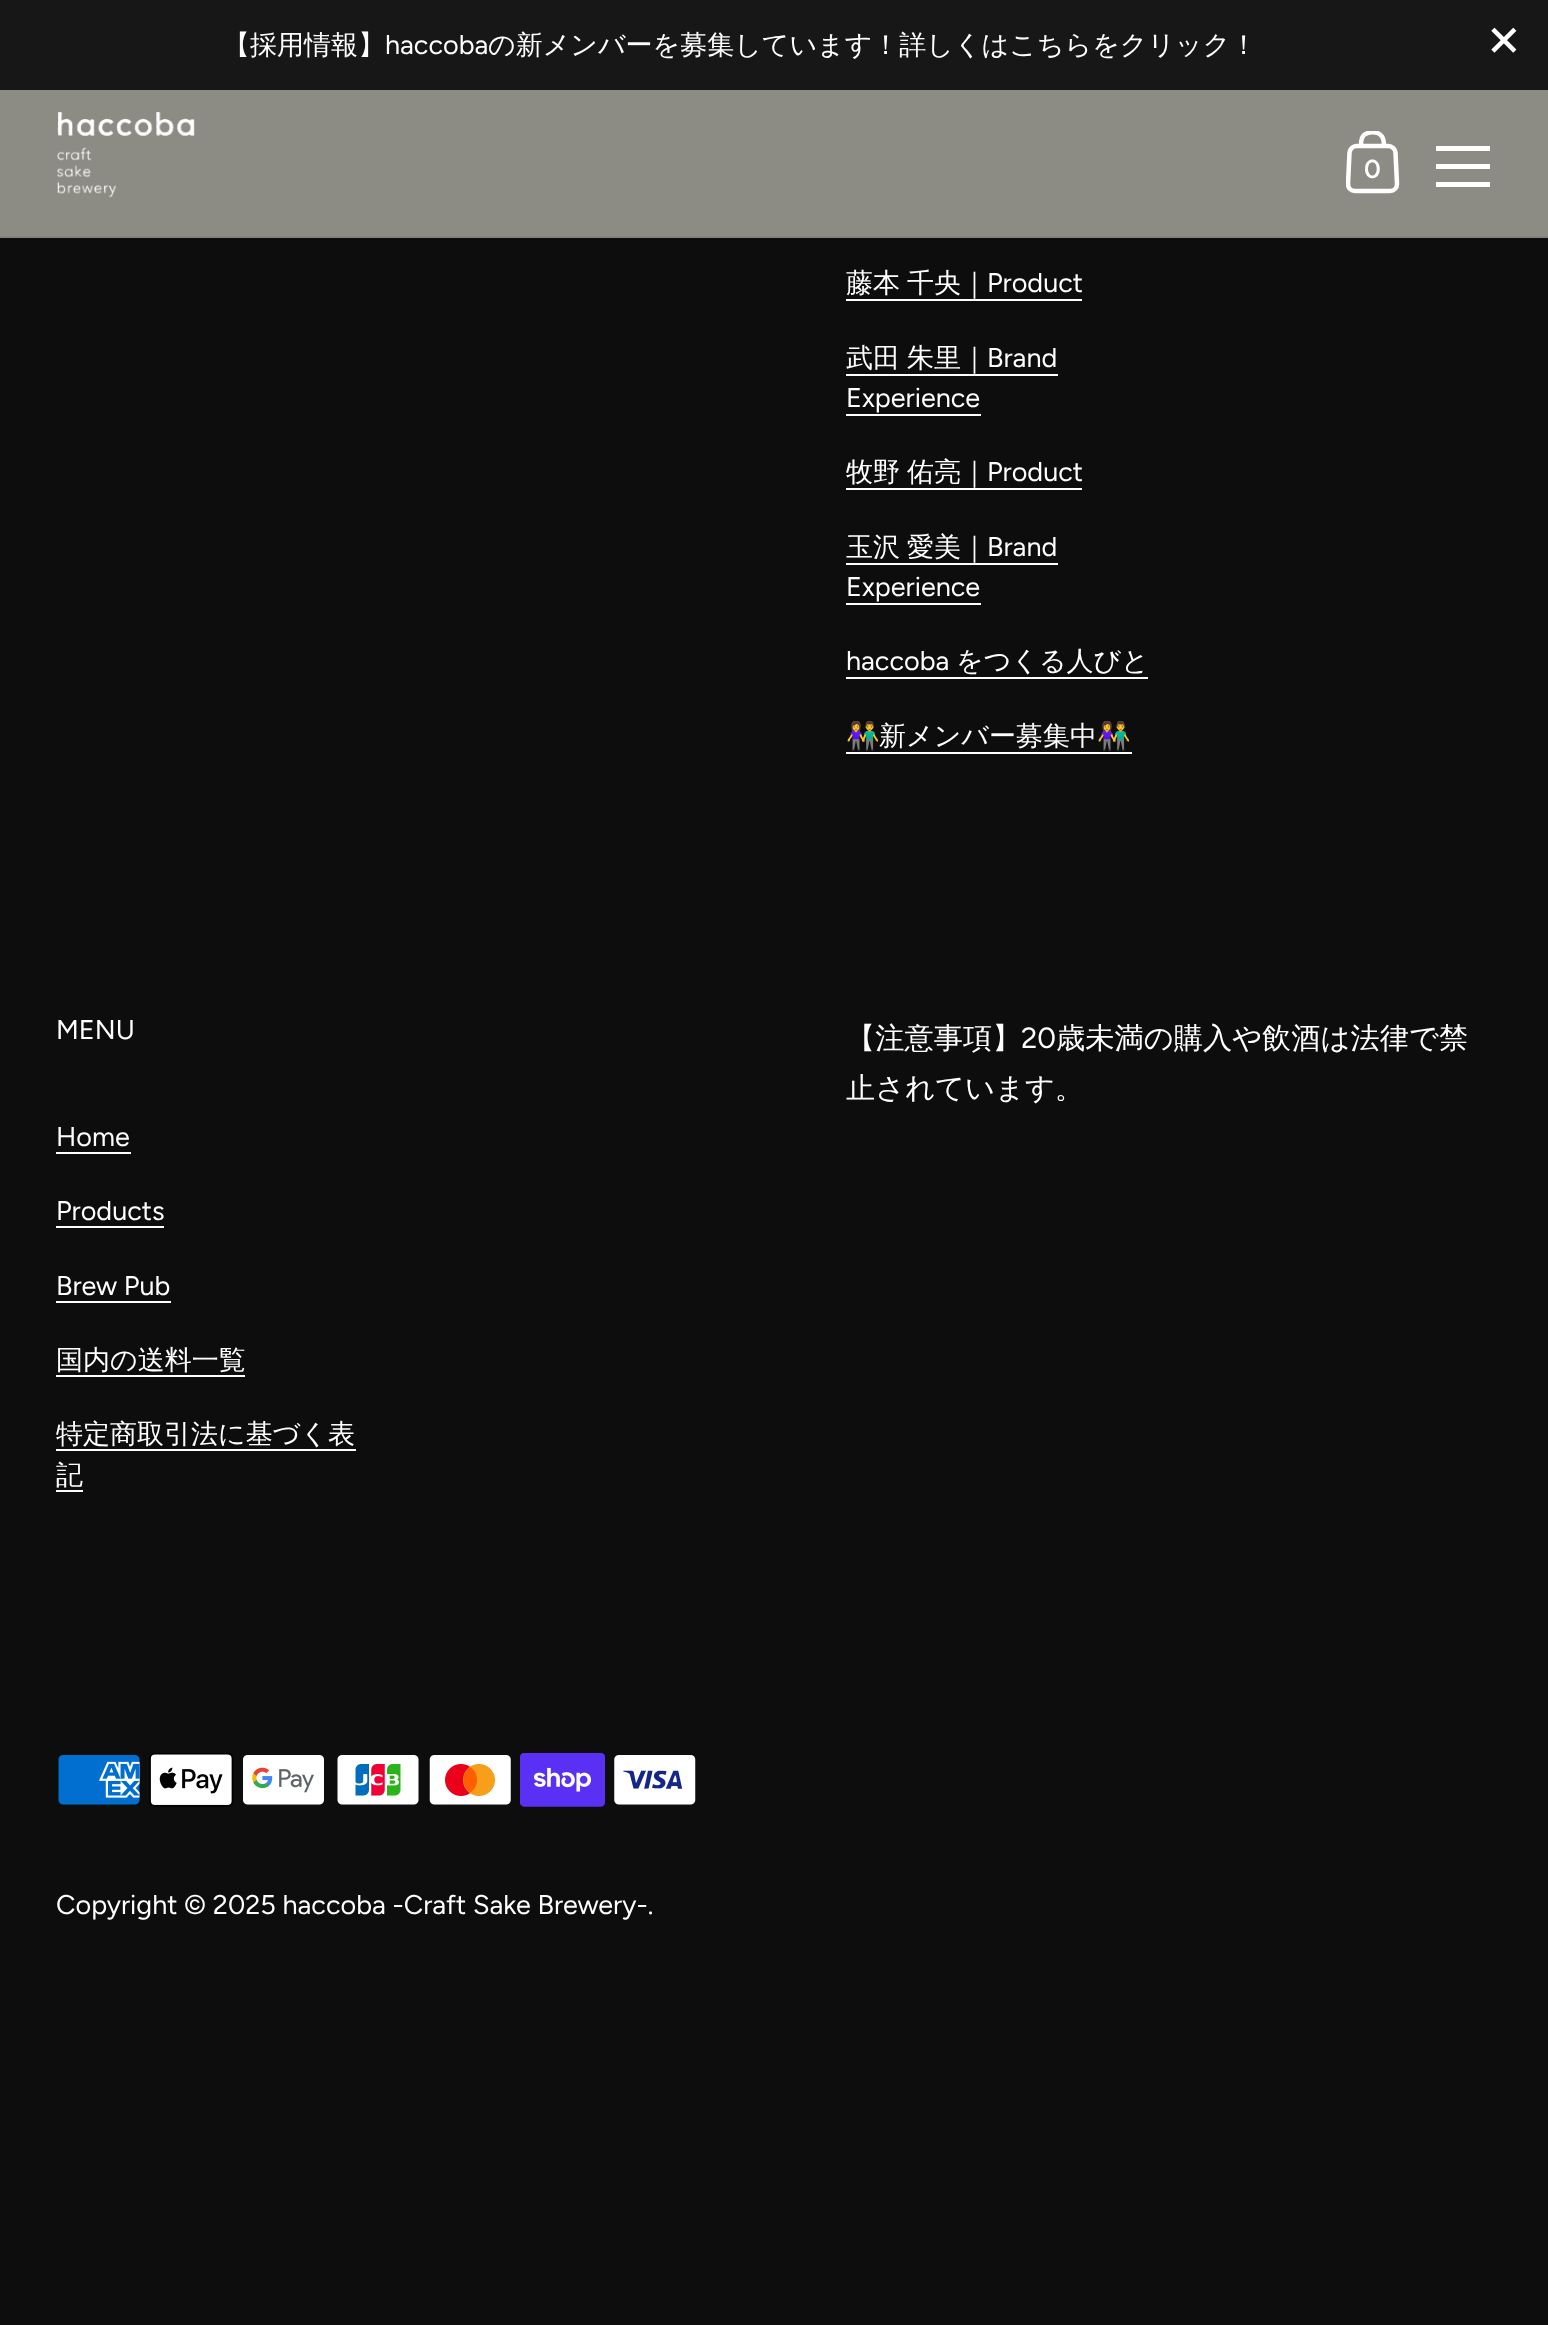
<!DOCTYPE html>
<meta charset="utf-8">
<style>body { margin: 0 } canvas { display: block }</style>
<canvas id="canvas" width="1548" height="2325"></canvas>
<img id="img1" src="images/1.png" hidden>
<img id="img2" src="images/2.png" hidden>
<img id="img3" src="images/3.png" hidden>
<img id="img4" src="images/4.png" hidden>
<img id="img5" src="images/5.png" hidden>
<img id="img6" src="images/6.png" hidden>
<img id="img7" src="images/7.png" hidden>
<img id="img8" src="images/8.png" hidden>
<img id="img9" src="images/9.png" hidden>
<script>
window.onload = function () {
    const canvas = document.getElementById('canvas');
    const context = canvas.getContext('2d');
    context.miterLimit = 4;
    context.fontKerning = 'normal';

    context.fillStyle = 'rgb(13, 13, 13)';
    context.fillRect(0, 0, 1548, 2325);
    context.fillStyle = 'rgb(23, 23, 23)';
    context.fillRect(0, 0, 1548, 90);
    context.drawImage(document.getElementById('img1'), 1491, 27, 26, 26);
    context.fillStyle = 'rgb(131, 130, 122)';
    context.fillRect(0, 236, 1548, 2);
    context.fillStyle = 'rgb(141, 140, 132)';
    context.fillRect(0, 90, 1548, 146);
    context.drawImage(document.getElementById('img2'), 57, 112, 138, 86);
    context.save();
    context.beginPath();
    context.rect(1346, 131, 54, 63);
    context.clip();
    context.beginPath();
    context.moveTo(1361, 146);
    context.lineTo(1356.5, 146);
    context.bezierCurveTo(1353, 146, 1350, 149, 1349.5, 152.5);
    context.lineTo(1348, 184);
    context.bezierCurveTo(1348, 188, 1351, 191, 1355, 191);
    context.lineTo(1390, 191);
    context.bezierCurveTo(1394, 191, 1397, 188, 1397, 184);
    context.lineTo(1395.5, 152.5);
    context.bezierCurveTo(1395, 149, 1392, 146, 1388.5, 146);
    context.lineTo(1384, 146);
    context.moveTo(1361, 146);
    context.bezierCurveTo(1361, 143.5, 1361, 140.5, 1362, 138);
    context.bezierCurveTo(1365, 131, 1378, 130.5, 1382, 136.5);
    context.bezierCurveTo(1384, 139.5, 1384, 143, 1384, 146);
    context.moveTo(1361, 146);
    context.lineTo(1384, 146);
    context.strokeStyle = 'rgb(255, 255, 255)';
    context.lineWidth = 4.5;
    context.stroke();
    context.restore();
    context.fillStyle = 'rgb(255, 255, 255)';
    context.fillRect(1436, 146, 54, 5);
    context.fillRect(1436, 164, 54, 5);
    context.fillRect(1436, 182, 54, 5);
    context.fillRect(846, 299, 236, 2);
    context.fillRect(846, 374, 212, 2);
    context.fillRect(846, 414, 135, 2);
    context.fillRect(846, 488, 236, 2);
    context.fillRect(846, 563, 212, 2);
    context.fillRect(846, 603, 135, 2);
    context.fillRect(846, 677, 302, 2);
    context.fillRect(846, 752, 286, 2);
    context.fillRect(56, 1152, 75, 2);
    context.fillRect(56, 1226, 108, 2);
    context.fillRect(56, 1301, 115, 2);
    context.fillRect(56, 1375, 189, 2);
    context.fillRect(56, 1449, 300, 2);
    context.fillRect(56, 1490, 27, 2);
    context.drawImage(document.getElementById('img3'), 58, 1755, 82, 50);
    context.drawImage(document.getElementById('img4'), 149, 1753, 85, 54);
    context.drawImage(document.getElementById('img5'), 243, 1755, 81, 50);
    context.drawImage(document.getElementById('img6'), 337, 1755, 82, 50);
    context.drawImage(document.getElementById('img7'), 429, 1755, 82, 50);
    context.drawImage(document.getElementById('img8'), 520, 1753, 85, 54);
    context.drawImage(document.getElementById('img9'), 614, 1755, 82, 50);
    context.font = '500 27px WenQuanYi Zen Hei';
    context.fillText('【採用情報】', 223, 54);
    context.font = '27px Figtree';
    context.fillText('haccoba', 385, 54);
    context.font = '500 27px WenQuanYi Zen Hei';
    context.fillText('の新メンバーを募集しています！詳しくはこちらをクリック！', 488, 54);
    context.font = '600 26px Figtree';
    context.fillText('0', 1364, 178);
    context.wordSpacing = '-1px';
    context.font = '500 27px WenQuanYi Zen Hei';
    context.fillText('藤本 千央｜', 846, 292);
    context.wordSpacing = '0px';
    context.font = '27px Figtree';
    context.fillText('Product', 987, 292);
    context.wordSpacing = '-1px';
    context.font = '500 27px WenQuanYi Zen Hei';
    context.fillText('武田 朱里｜', 846, 367);
    context.wordSpacing = '0px';
    context.font = '27px Figtree';
    context.fillText('Brand', 987, 367);
    context.fillText('Experience', 846, 407);
    context.wordSpacing = '-1px';
    context.font = '500 27px WenQuanYi Zen Hei';
    context.fillText('牧野 佑亮｜', 846, 481);
    context.wordSpacing = '0px';
    context.font = '27px Figtree';
    context.fillText('Product', 987, 481);
    context.wordSpacing = '-1px';
    context.font = '500 27px WenQuanYi Zen Hei';
    context.fillText('玉沢 愛美｜', 846, 556);
    context.wordSpacing = '0px';
    context.font = '27px Figtree';
    context.fillText('Brand', 987, 556);
    context.fillText('Experience', 846, 596);
    context.fillText('haccoba', 846, 670);
    context.font = '500 27px WenQuanYi Zen Hei';
    context.fillText('をつくる人びと', 956, 670);
    context.font = '27px Noto Color Emoji';
    context.fillText('👫', 846, 745);
    context.font = '500 27px WenQuanYi Zen Hei';
    context.fillText('新メンバー募集中', 879, 745);
    context.font = '27px Noto Color Emoji';
    context.fillText('👫', 1097, 745);
    context.font = '27px Figtree';
    context.fillText('MENU', 56, 1039);
    context.fillText('Home', 56, 1146);
    context.fillText('Products', 56, 1220);
    context.fillText('Brew Pub', 56, 1295);
    context.font = '500 27px WenQuanYi Zen Hei';
    context.fillText('国内の送料一覧', 56, 1369);
    context.fillText('特定商取引法に基づく表', 56, 1443);
    context.fillText('記', 56, 1484);
    context.font = '500 29.25px WenQuanYi Zen Hei';
    context.fillText('【注意事項】', 846, 1048);
    context.font = '29.25px Figtree';
    context.fillText('20', 1021, 1048);
    context.font = '500 29.25px WenQuanYi Zen Hei';
    context.fillText('歳未満の購入や飲酒は法律で禁', 1056, 1048);
    context.fillText('止されています。', 846, 1098);
    context.font = '27px Figtree';
    context.fillText('Copyright © 2025 haccoba -Craft Sake Brewery-.', 56, 1914);
};
</script>
